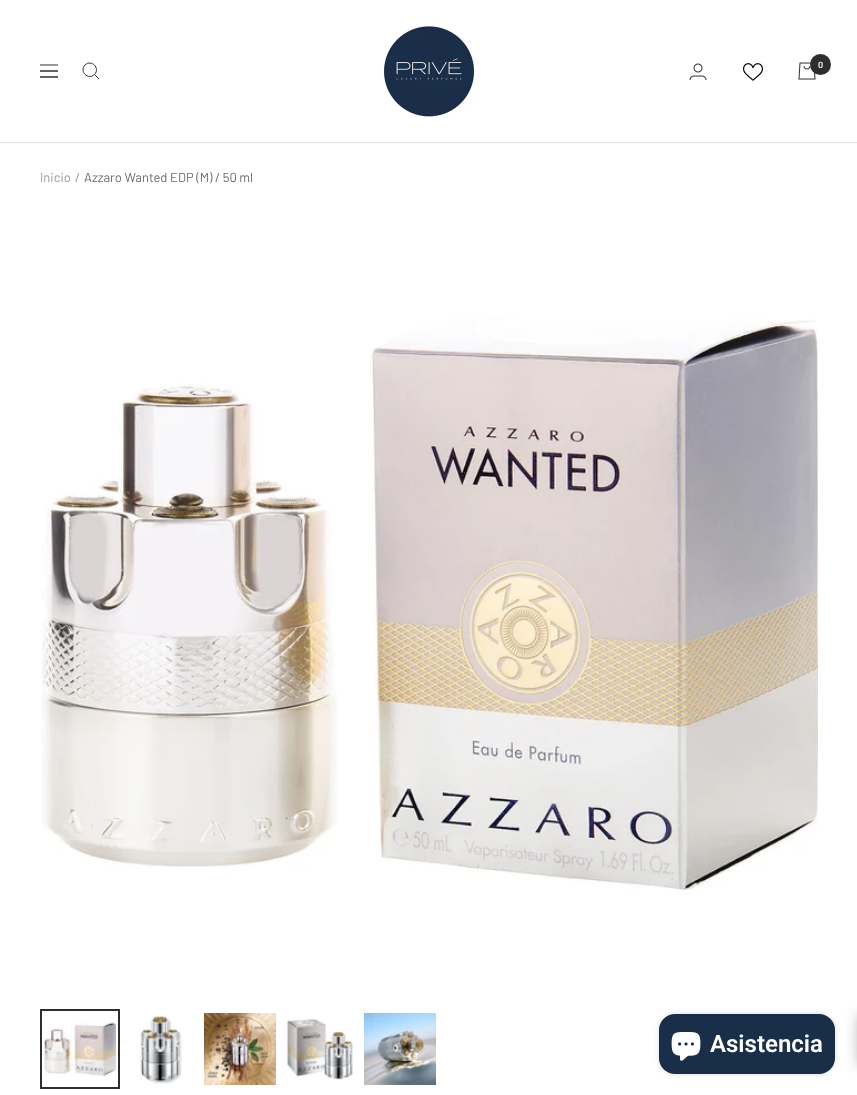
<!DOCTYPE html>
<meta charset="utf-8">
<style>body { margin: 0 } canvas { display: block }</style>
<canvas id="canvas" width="857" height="1095"></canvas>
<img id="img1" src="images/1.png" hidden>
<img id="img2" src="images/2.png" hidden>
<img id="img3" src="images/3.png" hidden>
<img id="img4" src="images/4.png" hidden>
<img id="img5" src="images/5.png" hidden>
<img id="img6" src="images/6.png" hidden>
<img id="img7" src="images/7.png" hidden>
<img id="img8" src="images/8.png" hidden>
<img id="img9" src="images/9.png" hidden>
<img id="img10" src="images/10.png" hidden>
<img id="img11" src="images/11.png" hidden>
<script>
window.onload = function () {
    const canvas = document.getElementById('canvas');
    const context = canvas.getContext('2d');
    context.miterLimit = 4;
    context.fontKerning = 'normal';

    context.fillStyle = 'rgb(255, 255, 255)';
    context.fillRect(0, 0, 857, 1095);
    context.fillStyle = 'rgb(224, 224, 224)';
    context.fillRect(0, 142, 857, 1);
    context.beginPath();
    context.moveTo(40, 65);
    context.lineTo(58, 65);
    context.moveTo(40, 77);
    context.lineTo(58, 77);
    context.closePath();
    context.moveTo(40, 71);
    context.lineTo(58, 71);
    context.closePath();
    context.moveTo(94.5, 74.5);
    context.bezierCurveTo(100.5, 68, 91.5, 59, 85, 65);
    context.bezierCurveTo(79, 71.5, 88, 80.5, 94.5, 74.5);
    context.closePath();
    context.moveTo(94.5, 74.5);
    context.lineTo(99, 79);
    context.strokeStyle = 'rgb(46, 46, 46)';
    context.stroke();
    context.drawImage(document.getElementById('img1'), 383, 25, 92, 92);
    context.drawImage(document.getElementById('img2'), 689, 63, 18, 17);
    context.drawImage(document.getElementById('img3'), 743, 63, 20, 18);
    context.drawImage(document.getElementById('img4'), 798, 62, 18, 18);
    context.fillStyle = 'rgb(46, 46, 46)';
    context.beginPath();
    context.arc(820.5, 64.5, 10.5, 0, 2 * Math.PI);
    context.fill();
    context.drawImage(document.getElementById('img5'), 41, 214, 777, 777);
    context.drawImage(document.getElementById('img6'), 44, 1022, 72, 55);
    context.lineWidth = 2;
    context.strokeRect(41, 1010, 78, 78);
    context.drawImage(document.getElementById('img7'), 140, 1015, 42, 69);
    context.drawImage(document.getElementById('img8'), 204, 1013, 72, 72);
    context.drawImage(document.getElementById('img9'), 286, 1019, 67, 61);
    context.drawImage(document.getElementById('img10'), 364, 1013, 72, 72);
    context.fillStyle = 'rgba(0, 0, 0, 0.15)';
    context.filter = 'blur(2.5px)';
    context.beginPath();
    context.roundRect(659, 1014, 176, 60, 16);
    context.fill();
    context.filter = 'none';
    context.fillStyle = 'rgb(25, 46, 73)';
    context.beginPath();
    context.roundRect(659, 1014, 176, 60, 16);
    context.fill();
    context.drawImage(document.getElementById('img11'), 671, 1032, 30, 29);
    context.fillStyle = 'rgba(117, 117, 117, 0.5)';
    context.filter = 'blur(7px)';
    context.beginPath();
    context.rect(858, 1015, 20, 50);
    context.fill();
    context.filter = 'none';
    context.font = '600 9px Barlow';
    context.fillStyle = 'rgb(255, 255, 255)';
    context.fillText('0', 818, 68);
    context.font = '13px Barlow';
    context.fillStyle = 'rgb(153, 153, 153)';
    context.fillText('Inicio', 40, 182);
    context.fillText('/', 75, 182);
    context.fillStyle = 'rgb(109, 109, 109)';
    context.fillText('Azzaro Wanted EDP (M) / 50 ml', 84, 182);
    context.font = '600 24px Roboto';
    context.fillStyle = 'rgb(255, 255, 255)';
    context.fillText('Asistencia', 710, 1052);
};
</script>
